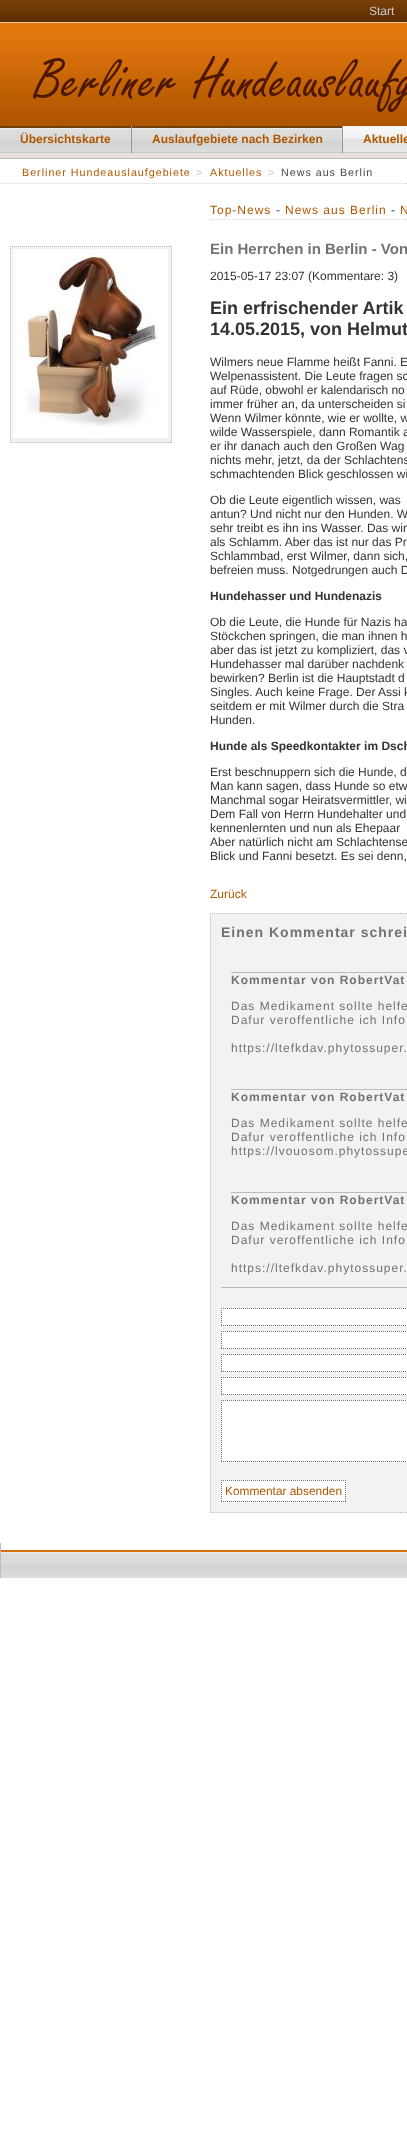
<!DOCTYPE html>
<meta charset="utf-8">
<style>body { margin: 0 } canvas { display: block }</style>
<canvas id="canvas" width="407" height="2155"></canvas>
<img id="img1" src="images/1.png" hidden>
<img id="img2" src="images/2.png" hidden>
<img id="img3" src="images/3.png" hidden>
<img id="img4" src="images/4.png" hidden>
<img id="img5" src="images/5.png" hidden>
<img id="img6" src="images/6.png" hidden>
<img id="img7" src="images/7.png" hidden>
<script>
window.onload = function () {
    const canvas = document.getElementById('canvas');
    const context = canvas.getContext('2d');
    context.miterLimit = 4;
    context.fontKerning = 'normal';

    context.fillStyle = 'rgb(255, 255, 255)';
    context.fillRect(0, 0, 407, 2155);
    context.drawImage(document.getElementById('img1'), 0, 153, 407, 5);
    context.drawImage(document.getElementById('img2'), 0, 0, 407, 126);
    context.drawImage(document.getElementById('img3'), 33, 56, 374, 56);
    context.fillStyle = 'rgb(187, 187, 187)';
    context.fillRect(0, 158, 407, 1);
    context.drawImage(document.getElementById('img4'), 0, 126, 407, 27);
    context.fillStyle = 'rgb(153, 153, 153)';
    context.fillRect(131, 126, 1, 27);
    context.fillRect(342, 126, 1, 27);
    context.drawImage(document.getElementById('img5'), 343, 126, 64, 26);
    context.beginPath();
    context.moveTo(0, 183.5);
    context.lineTo(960, 183.5);
    context.strokeStyle = 'rgb(216, 217, 217)';
    context.setLineDash([1, 1]);
    context.stroke();
    context.beginPath();
    context.moveTo(210, 219.5);
    context.lineTo(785, 219.5);
    context.strokeStyle = 'rgb(221, 221, 221)';
    context.stroke();
    context.fillStyle = 'rgb(242, 242, 242)';
    context.fillRect(210, 913, 197, 600);
    context.beginPath();
    context.moveTo(210, 913.5);
    context.lineTo(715, 913.5);
    context.strokeStyle = 'rgb(187, 187, 187)';
    context.stroke();
    context.beginPath();
    context.moveTo(210, 1512.5);
    context.lineTo(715, 1512.5);
    context.stroke();
    context.beginPath();
    context.moveTo(210.5, 913);
    context.lineTo(210.5, 1513);
    context.stroke();
    context.fillStyle = 'rgb(187, 187, 187)';
    context.fillRect(231, 972, 176, 1);
    context.fillRect(231, 1089, 176, 1);
    context.fillRect(221, 1287, 186, 1);
    context.fillRect(231, 1192, 176, 1);
    context.fillStyle = 'rgb(255, 255, 255)';
    context.fillRect(221, 1308, 186, 18);
    context.beginPath();
    context.moveTo(221, 1308.5);
    context.lineTo(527, 1308.5);
    context.strokeStyle = 'rgb(115, 115, 115)';
    context.stroke();
    context.beginPath();
    context.moveTo(221, 1325.5);
    context.lineTo(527, 1325.5);
    context.stroke();
    context.beginPath();
    context.moveTo(221.5, 1308);
    context.lineTo(221.5, 1326);
    context.stroke();
    context.fillRect(221, 1331, 186, 18);
    context.beginPath();
    context.moveTo(221, 1331.5);
    context.lineTo(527, 1331.5);
    context.stroke();
    context.beginPath();
    context.moveTo(221, 1348.5);
    context.lineTo(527, 1348.5);
    context.stroke();
    context.beginPath();
    context.moveTo(221.5, 1331);
    context.lineTo(221.5, 1349);
    context.stroke();
    context.fillRect(221, 1354, 186, 18);
    context.beginPath();
    context.moveTo(221, 1354.5);
    context.lineTo(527, 1354.5);
    context.stroke();
    context.beginPath();
    context.moveTo(221, 1371.5);
    context.lineTo(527, 1371.5);
    context.stroke();
    context.beginPath();
    context.moveTo(221.5, 1354);
    context.lineTo(221.5, 1372);
    context.stroke();
    context.fillRect(221, 1377, 186, 18);
    context.beginPath();
    context.moveTo(221, 1377.5);
    context.lineTo(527, 1377.5);
    context.stroke();
    context.beginPath();
    context.moveTo(221, 1394.5);
    context.lineTo(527, 1394.5);
    context.stroke();
    context.beginPath();
    context.moveTo(221.5, 1377);
    context.lineTo(221.5, 1395);
    context.stroke();
    context.fillRect(221, 1400, 186, 62);
    context.beginPath();
    context.moveTo(221, 1400.5);
    context.lineTo(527, 1400.5);
    context.stroke();
    context.beginPath();
    context.moveTo(221, 1461.5);
    context.lineTo(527, 1461.5);
    context.stroke();
    context.beginPath();
    context.moveTo(221.5, 1400);
    context.lineTo(221.5, 1462);
    context.stroke();
    context.fillRect(221, 1480, 125, 22);
    context.beginPath();
    context.moveTo(221, 1480.5);
    context.lineTo(346, 1480.5);
    context.stroke();
    context.beginPath();
    context.moveTo(345.5, 1480);
    context.lineTo(345.5, 1502);
    context.stroke();
    context.beginPath();
    context.moveTo(221, 1501.5);
    context.lineTo(346, 1501.5);
    context.stroke();
    context.beginPath();
    context.moveTo(221.5, 1480);
    context.lineTo(221.5, 1502);
    context.stroke();
    context.fillStyle = 'rgb(242, 242, 242)';
    context.fillRect(10, 246, 162, 197);
    context.beginPath();
    context.moveTo(10, 246.5);
    context.lineTo(172, 246.5);
    context.strokeStyle = 'rgb(187, 187, 187)';
    context.stroke();
    context.beginPath();
    context.moveTo(171.5, 246);
    context.lineTo(171.5, 443);
    context.stroke();
    context.beginPath();
    context.moveTo(10, 442.5);
    context.lineTo(172, 442.5);
    context.stroke();
    context.beginPath();
    context.moveTo(10.5, 246);
    context.lineTo(10.5, 443);
    context.stroke();
    context.drawImage(document.getElementById('img6'), 13, 249, 155, 189);
    context.drawImage(document.getElementById('img7'), 1, 1550, 406, 28);
    context.fillStyle = 'rgb(187, 187, 187)';
    context.fillRect(0, 1543, 1, 35);
    context.font = '12px Liberation Sans';
    context.fillStyle = 'rgb(204, 204, 204)';
    context.fillText('Start', 369, 15);
    context.font = 'bold 12px Liberation Sans';
    context.fillStyle = 'rgb(176, 87, 1)';
    context.fillText('Übersichtskarte', 20, 143);
    context.fillText('Auslaufgebiete nach Bezirken', 152, 143);
    context.fillText('Aktuelle', 363, 143);
    context.letterSpacing = '1px';
    context.font = '10.7px Liberation Sans';
    context.fillText('Berliner Hundeauslaufgebiete', 22, 176);
    context.fillStyle = 'rgb(200, 193, 187)';
    context.fillText('>', 196, 176);
    context.fillStyle = 'rgb(176, 87, 1)';
    context.fillText('Aktuelles', 210, 176);
    context.fillStyle = 'rgb(200, 193, 187)';
    context.fillText('>', 268, 176);
    context.fillStyle = 'rgb(75, 71, 66)';
    context.fillText('News aus Berlin', 281, 176);
    context.font = '12px Liberation Sans';
    context.fillStyle = 'rgb(176, 87, 1)';
    context.fillText('Top-News', 210, 214);
    context.fillStyle = 'rgb(51, 51, 51)';
    context.fillText('-', 276, 214);
    context.fillStyle = 'rgb(176, 87, 1)';
    context.fillText('News aus Berlin', 285, 214);
    context.fillStyle = 'rgb(51, 51, 51)';
    context.fillText('-', 391, 214);
    context.fillStyle = 'rgb(176, 87, 1)';
    context.fillText('N', 400, 214);
    context.letterSpacing = '0px';
    context.font = 'bold 15px Liberation Sans';
    context.fillStyle = 'rgb(115, 115, 115)';
    context.fillText('Ein Herrchen in Berlin - Von', 210, 254);
    context.font = '12px Liberation Sans';
    context.fillStyle = 'rgb(51, 51, 51)';
    context.fillText('2015-05-17 23:07 (Kommentare: 3)', 210, 280);
    context.font = 'bold 18px Liberation Sans';
    context.fillText('Ein erfrischender Artik', 210, 314);
    context.fillText('14.05.2015, von Helmut', 210, 335);
    context.font = '12px Liberation Sans';
    context.fillText('Wilmers neue Flamme heißt Fanni. E', 210, 366);
    context.fillText('Welpenassistent. Die Leute fragen sc', 210, 380);
    context.fillText('auf Rüde, obwohl er kalendarisch no', 210, 394);
    context.fillText('immer früher an, da unterscheiden si', 210, 408);
    context.fillText('Wenn Wilmer könnte, wie er wollte, w', 210, 422);
    context.fillText('wilde Wasserspiele, dann Romantik a', 210, 436);
    context.fillText('er ihr danach auch den Großen Wag', 210, 450);
    context.fillText('nichts mehr, jetzt, da der Schlachtens', 210, 464);
    context.fillText('schmachtenden Blick geschlossen wi', 210, 478);
    context.fillText('Ob die Leute eigentlich wissen, was', 210, 504);
    context.fillText('antun? Und nicht nur den Hunden. W', 210, 518);
    context.fillText('sehr treibt es ihn ins Wasser. Das wir', 210, 532);
    context.fillText('als Schlamm. Aber das ist nur das Pr', 210, 546);
    context.fillText('Schlammbad, erst Wilmer, dann sich,', 210, 560);
    context.fillText('befreien muss. Notgedrungen auch D', 210, 574);
    context.font = 'bold 12px Liberation Sans';
    context.fillText('Hundehasser und Hundenazis', 210, 600);
    context.font = '12px Liberation Sans';
    context.fillText('Ob die Leute, die Hunde für Nazis ha', 210, 626);
    context.fillText('Stöckchen springen, die man ihnen h', 210, 640);
    context.fillText('aber das ist jetzt zu kompliziert, das v', 210, 654);
    context.fillText('Hundehasser mal darüber nachdenk', 210, 668);
    context.fillText('bewirken? Berlin ist die Hauptstadt d', 210, 682);
    context.fillText('Singles. Auch keine Frage. Der Assi k', 210, 696);
    context.fillText('seitdem er mit Wilmer durch die Stra', 210, 710);
    context.fillText('Hunden.', 210, 724);
    context.font = 'bold 12px Liberation Sans';
    context.fillText('Hunde als Speedkontakter im Dsch', 210, 750);
    context.font = '12px Liberation Sans';
    context.fillText('Erst beschnuppern sich die Hunde, d', 210, 776);
    context.fillText('Man kann sagen, dass Hunde so etw', 210, 790);
    context.fillText('Manchmal sogar Heiratsvermittler, wi', 210, 804);
    context.fillText('Dem Fall von Herrn Hundehalter und', 210, 818);
    context.fillText('kennenlernten und nun als Ehepaar', 210, 832);
    context.fillText('Aber natürlich nicht am Schlachtense', 210, 846);
    context.fillText('Blick und Fanni besetzt. Es sei denn,', 210, 860);
    context.fillStyle = 'rgb(176, 87, 1)';
    context.fillText('Zurück', 210, 898);
    context.letterSpacing = '1px';
    context.font = 'bold 14px Liberation Sans';
    context.fillStyle = 'rgb(115, 115, 115)';
    context.fillText('Einen Kommentar schrei', 221, 937);
    context.font = 'bold 12px Liberation Sans';
    context.fillText('Kommentar von RobertVat', 231, 984);
    context.font = '12px Liberation Sans';
    context.fillText('Das Medikament sollte helfe', 231, 1010);
    context.fillText('Dafur veroffentliche ich Info', 231, 1024);
    context.fillText('https://ltefkdav.phytossuper.', 231, 1052);
    context.font = 'bold 12px Liberation Sans';
    context.fillText('Kommentar von RobertVat', 231, 1101);
    context.font = '12px Liberation Sans';
    context.fillText('Das Medikament sollte helfe', 231, 1127);
    context.fillText('Dafur veroffentliche ich Info', 231, 1141);
    context.fillText('https://lvouosom.phytossupe', 231, 1155);
    context.font = 'bold 12px Liberation Sans';
    context.fillText('Kommentar von RobertVat', 231, 1204);
    context.font = '12px Liberation Sans';
    context.fillText('Das Medikament sollte helfe', 231, 1230);
    context.fillText('Dafur veroffentliche ich Info', 231, 1244);
    context.fillText('https://ltefkdav.phytossuper.', 231, 1272);
    context.letterSpacing = '0px';
    context.font = '11.9px Liberation Sans';
    context.fillStyle = 'rgb(176, 87, 1)';
    context.fillText('Kommentar absenden', 225, 1495);
};
</script>
